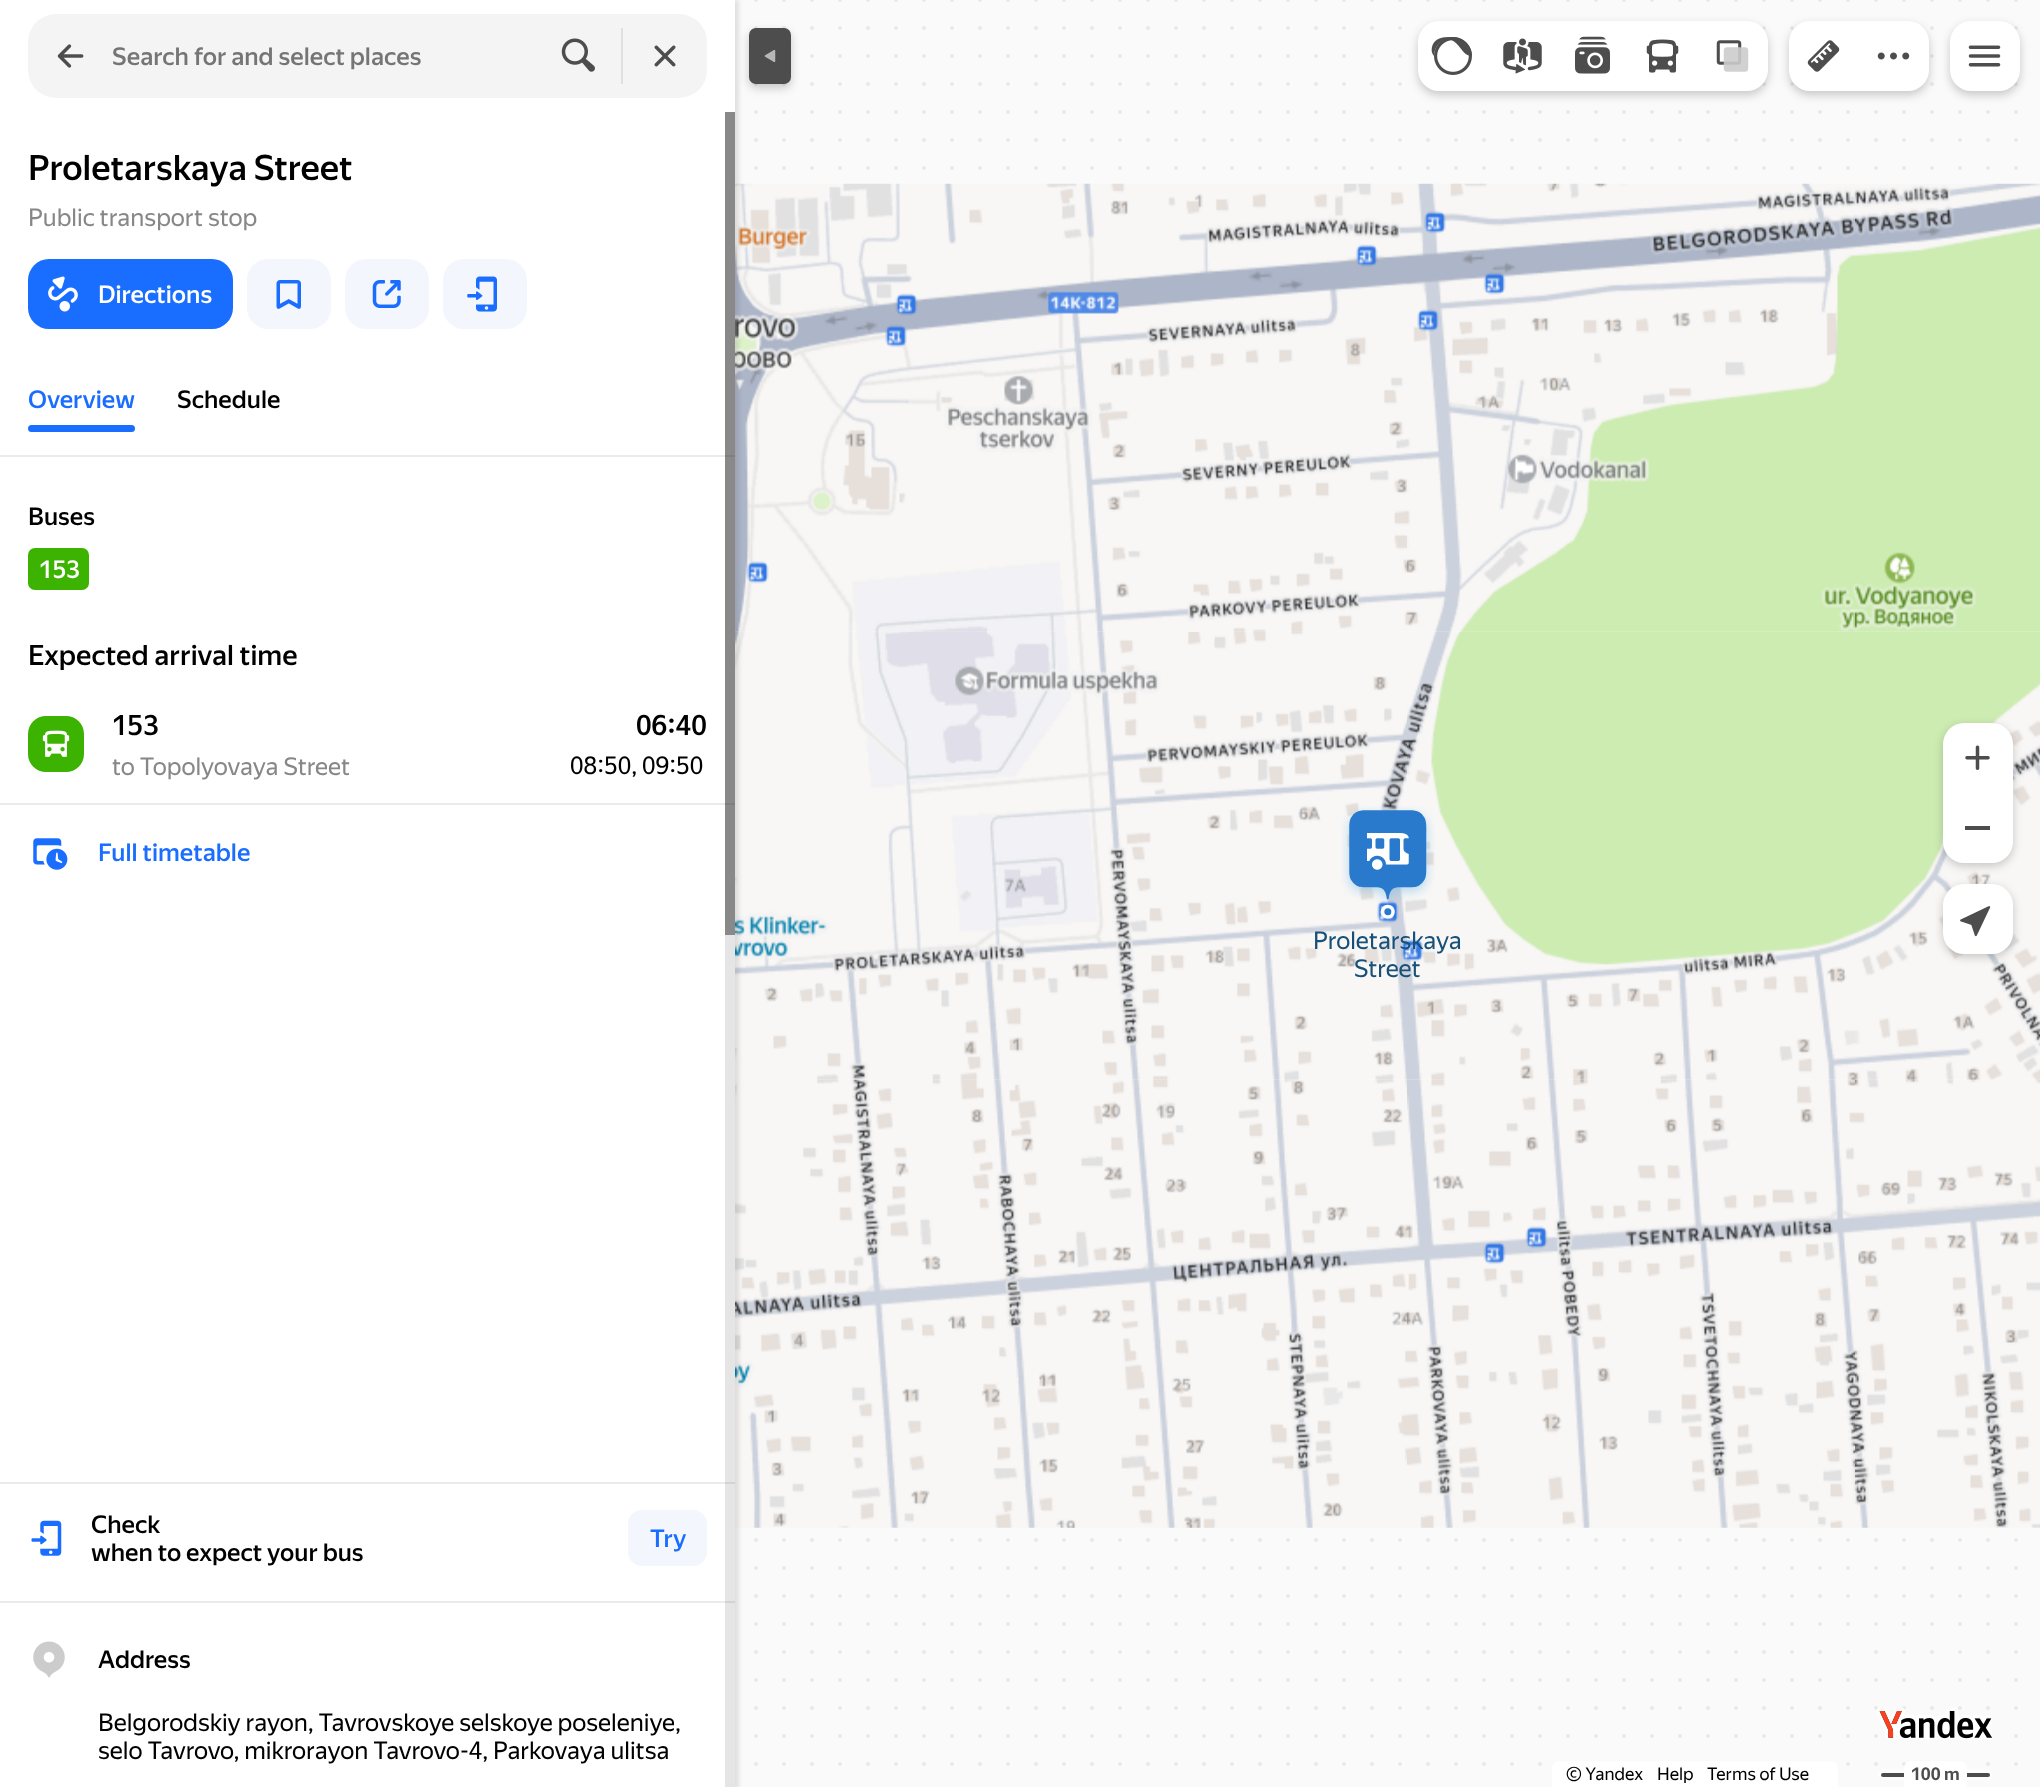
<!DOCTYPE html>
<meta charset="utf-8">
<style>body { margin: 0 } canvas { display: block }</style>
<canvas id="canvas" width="2040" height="1787"></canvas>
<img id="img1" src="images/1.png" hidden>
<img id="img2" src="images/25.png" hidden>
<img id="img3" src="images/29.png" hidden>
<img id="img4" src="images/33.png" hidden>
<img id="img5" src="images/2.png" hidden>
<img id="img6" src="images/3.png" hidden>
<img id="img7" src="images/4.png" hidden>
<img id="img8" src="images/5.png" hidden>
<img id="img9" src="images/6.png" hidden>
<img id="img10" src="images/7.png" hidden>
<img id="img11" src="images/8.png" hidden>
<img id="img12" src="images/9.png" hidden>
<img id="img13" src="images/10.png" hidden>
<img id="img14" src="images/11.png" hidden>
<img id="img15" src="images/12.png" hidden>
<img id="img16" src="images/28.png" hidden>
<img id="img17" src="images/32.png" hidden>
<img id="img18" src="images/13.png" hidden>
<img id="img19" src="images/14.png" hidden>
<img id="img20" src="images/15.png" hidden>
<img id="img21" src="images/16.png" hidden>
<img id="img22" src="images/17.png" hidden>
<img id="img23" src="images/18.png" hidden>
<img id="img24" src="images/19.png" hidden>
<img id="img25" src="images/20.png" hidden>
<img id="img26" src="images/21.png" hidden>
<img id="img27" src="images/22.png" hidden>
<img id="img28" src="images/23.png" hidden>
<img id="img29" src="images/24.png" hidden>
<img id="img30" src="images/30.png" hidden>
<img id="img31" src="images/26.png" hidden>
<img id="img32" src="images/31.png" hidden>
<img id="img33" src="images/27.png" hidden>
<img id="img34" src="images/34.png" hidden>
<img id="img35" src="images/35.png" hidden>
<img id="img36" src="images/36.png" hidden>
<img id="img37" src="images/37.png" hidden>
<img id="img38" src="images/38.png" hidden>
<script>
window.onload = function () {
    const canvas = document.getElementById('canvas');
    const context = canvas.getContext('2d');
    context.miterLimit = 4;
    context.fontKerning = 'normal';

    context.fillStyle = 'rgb(255, 255, 255)';
    context.fillRect(0, 0, 2040, 1787);
    context.drawImage(document.getElementById('img1'), 735, 0, 1305, 1787);
    context.drawImage(document.getElementById('img2'), 735, 183, 224, 449);
    context.drawImage(document.getElementById('img3'), 735, 631, 224, 449);
    context.drawImage(document.getElementById('img4'), 735, 1079, 224, 449);
    context.fillStyle = 'rgba(0, 0, 0, 0.1)';
    context.filter = 'blur(2px)';
    context.beginPath();
    context.rect(4, 0, 735, 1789);
    context.fill();
    context.filter = 'none';
    context.fillStyle = 'rgba(0, 0, 0, 0.2)';
    context.filter = 'blur(5px)';
    context.beginPath();
    context.roundRect(749, 32, 42, 56, 7);
    context.fill();
    context.filter = 'none';
    context.fillStyle = 'rgb(255, 255, 255)';
    context.fillRect(1, 0, 734, 1787);
    context.fillStyle = 'rgb(244, 244, 244)';
    context.beginPath();
    context.roundRect(28, 14, 679, 84, 28);
    context.fill();
    context.drawImage(document.getElementById('img5'), 57, 44, 27, 24);
    context.drawImage(document.getElementById('img6'), 561, 38, 34, 34);
    context.fillStyle = 'rgb(224, 224, 224)';
    context.fillRect(621, 28, 2, 56);
    context.drawImage(document.getElementById('img7'), 654, 45, 22, 22);
    context.fillStyle = 'rgba(0, 0, 0, 0.2)';
    context.filter = 'blur(5px)';
    context.beginPath();
    context.roundRect(1418, 25, 350, 70, 21);
    context.fill();
    context.filter = 'none';
    context.fillStyle = 'rgb(255, 255, 255)';
    context.beginPath();
    context.roundRect(1418, 21, 70, 70, [21, 0, 0, 21]);
    context.fill();
    context.drawImage(document.getElementById('img8'), 1431, 37, 41, 38);
    context.fillRect(1488, 21, 210, 70);
    context.drawImage(document.getElementById('img9'), 1503, 38, 39, 36);
    context.beginPath();
    context.roundRect(1698, 21, 70, 70, [0, 21, 21, 0]);
    context.fill();
    context.drawImage(document.getElementById('img10'), 1716, 40, 33, 32);
    context.drawImage(document.getElementById('img11'), 1575, 36, 35, 38);
    context.drawImage(document.getElementById('img12'), 1646, 39, 33, 34);
    context.fillStyle = 'rgba(0, 0, 0, 0.2)';
    context.filter = 'blur(5px)';
    context.beginPath();
    context.roundRect(1789, 25, 140, 70, 21);
    context.fill();
    context.filter = 'none';
    context.fillStyle = 'rgb(255, 255, 255)';
    context.beginPath();
    context.roundRect(1789, 21, 70, 70, [21, 0, 0, 21]);
    context.fill();
    context.drawImage(document.getElementById('img13'), 1807, 40, 33, 32);
    context.beginPath();
    context.roundRect(1859, 21, 70, 70, [0, 21, 21, 0]);
    context.fill();
    context.drawImage(document.getElementById('img14'), 1877, 52, 33, 8);
    context.fillStyle = 'rgba(0, 0, 0, 0.2)';
    context.filter = 'blur(5px)';
    context.beginPath();
    context.roundRect(1950, 25, 70, 70, 21);
    context.fill();
    context.filter = 'none';
    context.fillStyle = 'rgb(255, 255, 255)';
    context.beginPath();
    context.roundRect(1950, 21, 70, 70, 21);
    context.fill();
    context.drawImage(document.getElementById('img15'), 1968, 45, 33, 22);
    context.drawImage(document.getElementById('img16'), 1855, 183, 185, 449);
    context.drawImage(document.getElementById('img17'), 1855, 631, 185, 449);
    context.fillStyle = 'rgba(0, 0, 0, 0.2)';
    context.filter = 'blur(5px)';
    context.beginPath();
    context.roundRect(1943, 726, 70, 140, 21);
    context.fill();
    context.filter = 'none';
    context.fillStyle = 'rgb(255, 255, 255)';
    context.beginPath();
    context.roundRect(1943, 723, 70, 70, [21, 21, 0, 0]);
    context.fill();
    context.drawImage(document.getElementById('img18'), 1965, 745, 25, 25);
    context.beginPath();
    context.roundRect(1943, 793, 70, 70, [0, 0, 21, 21]);
    context.fill();
    context.fillStyle = 'rgb(77, 77, 77)';
    context.fillRect(1965, 826, 25, 4);
    context.fillStyle = 'rgba(0, 0, 0, 0.2)';
    context.filter = 'blur(5px)';
    context.beginPath();
    context.roundRect(1943, 887, 70, 70, 21);
    context.fill();
    context.filter = 'none';
    context.fillStyle = 'rgb(255, 255, 255)';
    context.beginPath();
    context.roundRect(1943, 884, 70, 70, 21);
    context.fill();
    context.drawImage(document.getElementById('img19'), 1960, 906, 31, 31);
    context.fillStyle = 'rgb(77, 77, 77)';
    context.beginPath();
    context.roundRect(749, 28, 42, 56, 7);
    context.fill();
    context.drawImage(document.getElementById('img20'), 764, 49, 12, 14);
    context.fillStyle = 'rgb(25, 109, 255)';
    context.beginPath();
    context.roundRect(28, 259, 205, 70, 21);
    context.fill();
    context.drawImage(document.getElementById('img21'), 48, 276, 30, 36);
    context.fillStyle = 'rgb(243, 246, 252)';
    context.beginPath();
    context.roundRect(247, 259, 84, 70, 21);
    context.fill();
    context.drawImage(document.getElementById('img22'), 276, 280, 25, 29);
    context.beginPath();
    context.roundRect(345, 259, 84, 70, 21);
    context.fill();
    context.drawImage(document.getElementById('img23'), 372, 280, 29, 28);
    context.beginPath();
    context.roundRect(443, 259, 84, 70, 21);
    context.fill();
    context.drawImage(document.getElementById('img24'), 467, 276, 30, 36);
    context.fillStyle = 'rgb(25, 109, 255)';
    context.beginPath();
    context.roundRect(28, 425, 107, 7, 3.5);
    context.fill();
    context.fillStyle = 'rgb(235, 235, 235)';
    context.fillRect(0, 455, 735, 2);
    context.fillStyle = 'rgb(59, 179, 0)';
    context.beginPath();
    context.roundRect(28, 548, 61, 42, 7);
    context.fill();
    context.beginPath();
    context.roundRect(28, 716, 56, 56, 18);
    context.fill();
    context.drawImage(document.getElementById('img25'), 42, 730, 28, 27);
    context.fillStyle = 'rgb(235, 235, 235)';
    context.fillRect(0, 803, 735, 2);
    context.drawImage(document.getElementById('img26'), 33, 838, 35, 32);
    context.fillRect(0, 1482, 735, 2);
    context.drawImage(document.getElementById('img27'), 31, 1520, 31, 36);
    context.fillStyle = 'rgb(243, 246, 252)';
    context.beginPath();
    context.roundRect(628, 1510, 79, 56, 14);
    context.fill();
    context.fillStyle = 'rgb(235, 235, 235)';
    context.fillRect(0, 1601, 735, 2);
    context.drawImage(document.getElementById('img28'), 33, 1641, 32, 37);
    context.fillStyle = 'rgba(0, 0, 0, 0.1)';
    context.fillRect(725, 112, 10, 1675);
    context.fillStyle = 'rgba(0, 0, 0, 0.4)';
    context.fillRect(725, 112, 10, 823);
    context.drawImage(document.getElementById('img29'), 1876, 1707, 116, 32);
    context.fillStyle = 'rgb(255, 255, 255)';
    context.beginPath();
    context.moveTo(1559, 1761);
    context.lineTo(1831, 1761);
    context.bezierCurveTo(1835, 1761, 1838, 1764, 1838, 1768);
    context.lineTo(1838, 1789);
    context.lineTo(1552, 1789);
    context.lineTo(1552, 1768);
    context.bezierCurveTo(1552, 1764, 1555, 1761, 1559, 1761);
    context.closePath();
    context.fill();
    context.fillStyle = 'rgb(253, 253, 253)';
    context.beginPath();
    context.roundRect(1878, 1769, 115, 11, 5.5);
    context.fill();
    context.fillStyle = 'rgb(77, 77, 77)';
    context.beginPath();
    context.roundRect(1881, 1773, 109, 4, 2);
    context.fill();
    context.fillStyle = 'rgb(255, 255, 255)';
    context.beginPath();
    context.moveTo(1911, 1761);
    context.lineTo(1960, 1761);
    context.bezierCurveTo(1964, 1761, 1967, 1764, 1967, 1768);
    context.lineTo(1967, 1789);
    context.lineTo(1904, 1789);
    context.lineTo(1904, 1768);
    context.bezierCurveTo(1904, 1764, 1907, 1761, 1911, 1761);
    context.closePath();
    context.fill();
    context.drawImage(document.getElementById('img30'), 959, 631, 448, 449);
    context.drawImage(document.getElementById('img31'), 959, 183, 448, 449);
    context.drawImage(document.getElementById('img32'), 1407, 631, 448, 449);
    context.drawImage(document.getElementById('img33'), 1407, 183, 448, 449);
    context.drawImage(document.getElementById('img34'), 959, 1079, 448, 449);
    context.drawImage(document.getElementById('img35'), 1407, 1079, 448, 449);
    context.drawImage(document.getElementById('img36'), 1855, 1079, 185, 449);
    context.drawImage(document.getElementById('img37'), 1341, 806, 94, 113);
    context.drawImage(document.getElementById('img38'), 1367, 833, 42, 37);
    context.font = '500 24.5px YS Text';
    context.fillStyle = 'rgb(117, 117, 117)';
    context.fillText('Search for and select places', 112, 65);
    context.font = '500 35px YS Text';
    context.fillStyle = 'rgb(0, 0, 0)';
    context.fillText('Proletarskaya Street', 28, 180);
    context.font = '24.5px YS Text';
    context.fillStyle = 'rgb(135, 135, 135)';
    context.fillText('Public transport stop', 28, 226);
    context.font = '500 24.5px YS Text';
    context.fillStyle = 'rgb(255, 255, 255)';
    context.fillText('Directions', 98, 303);
    context.fillStyle = 'rgb(25, 109, 255)';
    context.fillText('Overview', 28, 408);
    context.fillStyle = 'rgb(0, 0, 0)';
    context.fillText('Schedule', 177, 408);
    context.fillText('Buses', 28, 525);
    context.fillStyle = 'rgb(255, 255, 255)';
    context.fillText('153', 39, 578);
    context.font = '500 28px YS Text';
    context.fillStyle = 'rgb(0, 0, 0)';
    context.fillText('Expected arrival time', 28, 665);
    context.fillText('153', 112, 735);
    context.font = '24.5px YS Text';
    context.fillStyle = 'rgb(135, 135, 135)';
    context.fillText('to Topolyovaya Street', 112, 775);
    context.font = '500 28px YS Text';
    context.fillStyle = 'rgb(0, 0, 0)';
    context.fillText('06:40', 636, 735);
    context.font = '24.5px YS Text';
    context.fillText('08:50, 09:50', 570, 774);
    context.font = '500 24.5px YS Text';
    context.fillStyle = 'rgb(25, 109, 255)';
    context.fillText('Full timetable', 98, 861);
    context.fillStyle = 'rgb(0, 0, 0)';
    context.fillText('Check', 91, 1533);
    context.fillText('when to expect your bus', 91, 1561);
    context.fillStyle = 'rgb(25, 109, 255)';
    context.fillText('Try', 650, 1547);
    context.fillStyle = 'rgb(0, 0, 0)';
    context.fillText('Address', 98, 1668);
    context.font = '24.5px YS Text';
    context.fillText('Belgorodskiy rayon, Tavrovskoye selskoye poseleniye,', 98, 1731);
    context.fillText('selo Tavrovo, mikrorayon Tavrovo-4, Parkovaya ulitsa', 98, 1759);
    context.font = '17.5px YS Text';
    context.fillText('© Yandex', 1566, 1780);
    context.fillText('Help', 1657, 1780);
    context.fillText('Terms of Use', 1707, 1780);
    context.font = 'bold 17.5px YS Text';
    context.fillStyle = 'rgb(77, 77, 77)';
    context.fillText('100 m', 1911, 1780);
    context.font = '24.5px YS Text';
    context.fillStyle = 'rgb(23, 80, 120)';
    context.fillText('Proletarskaya', 1313, 949);
    context.fillText('Street', 1354, 977);
};
</script>
